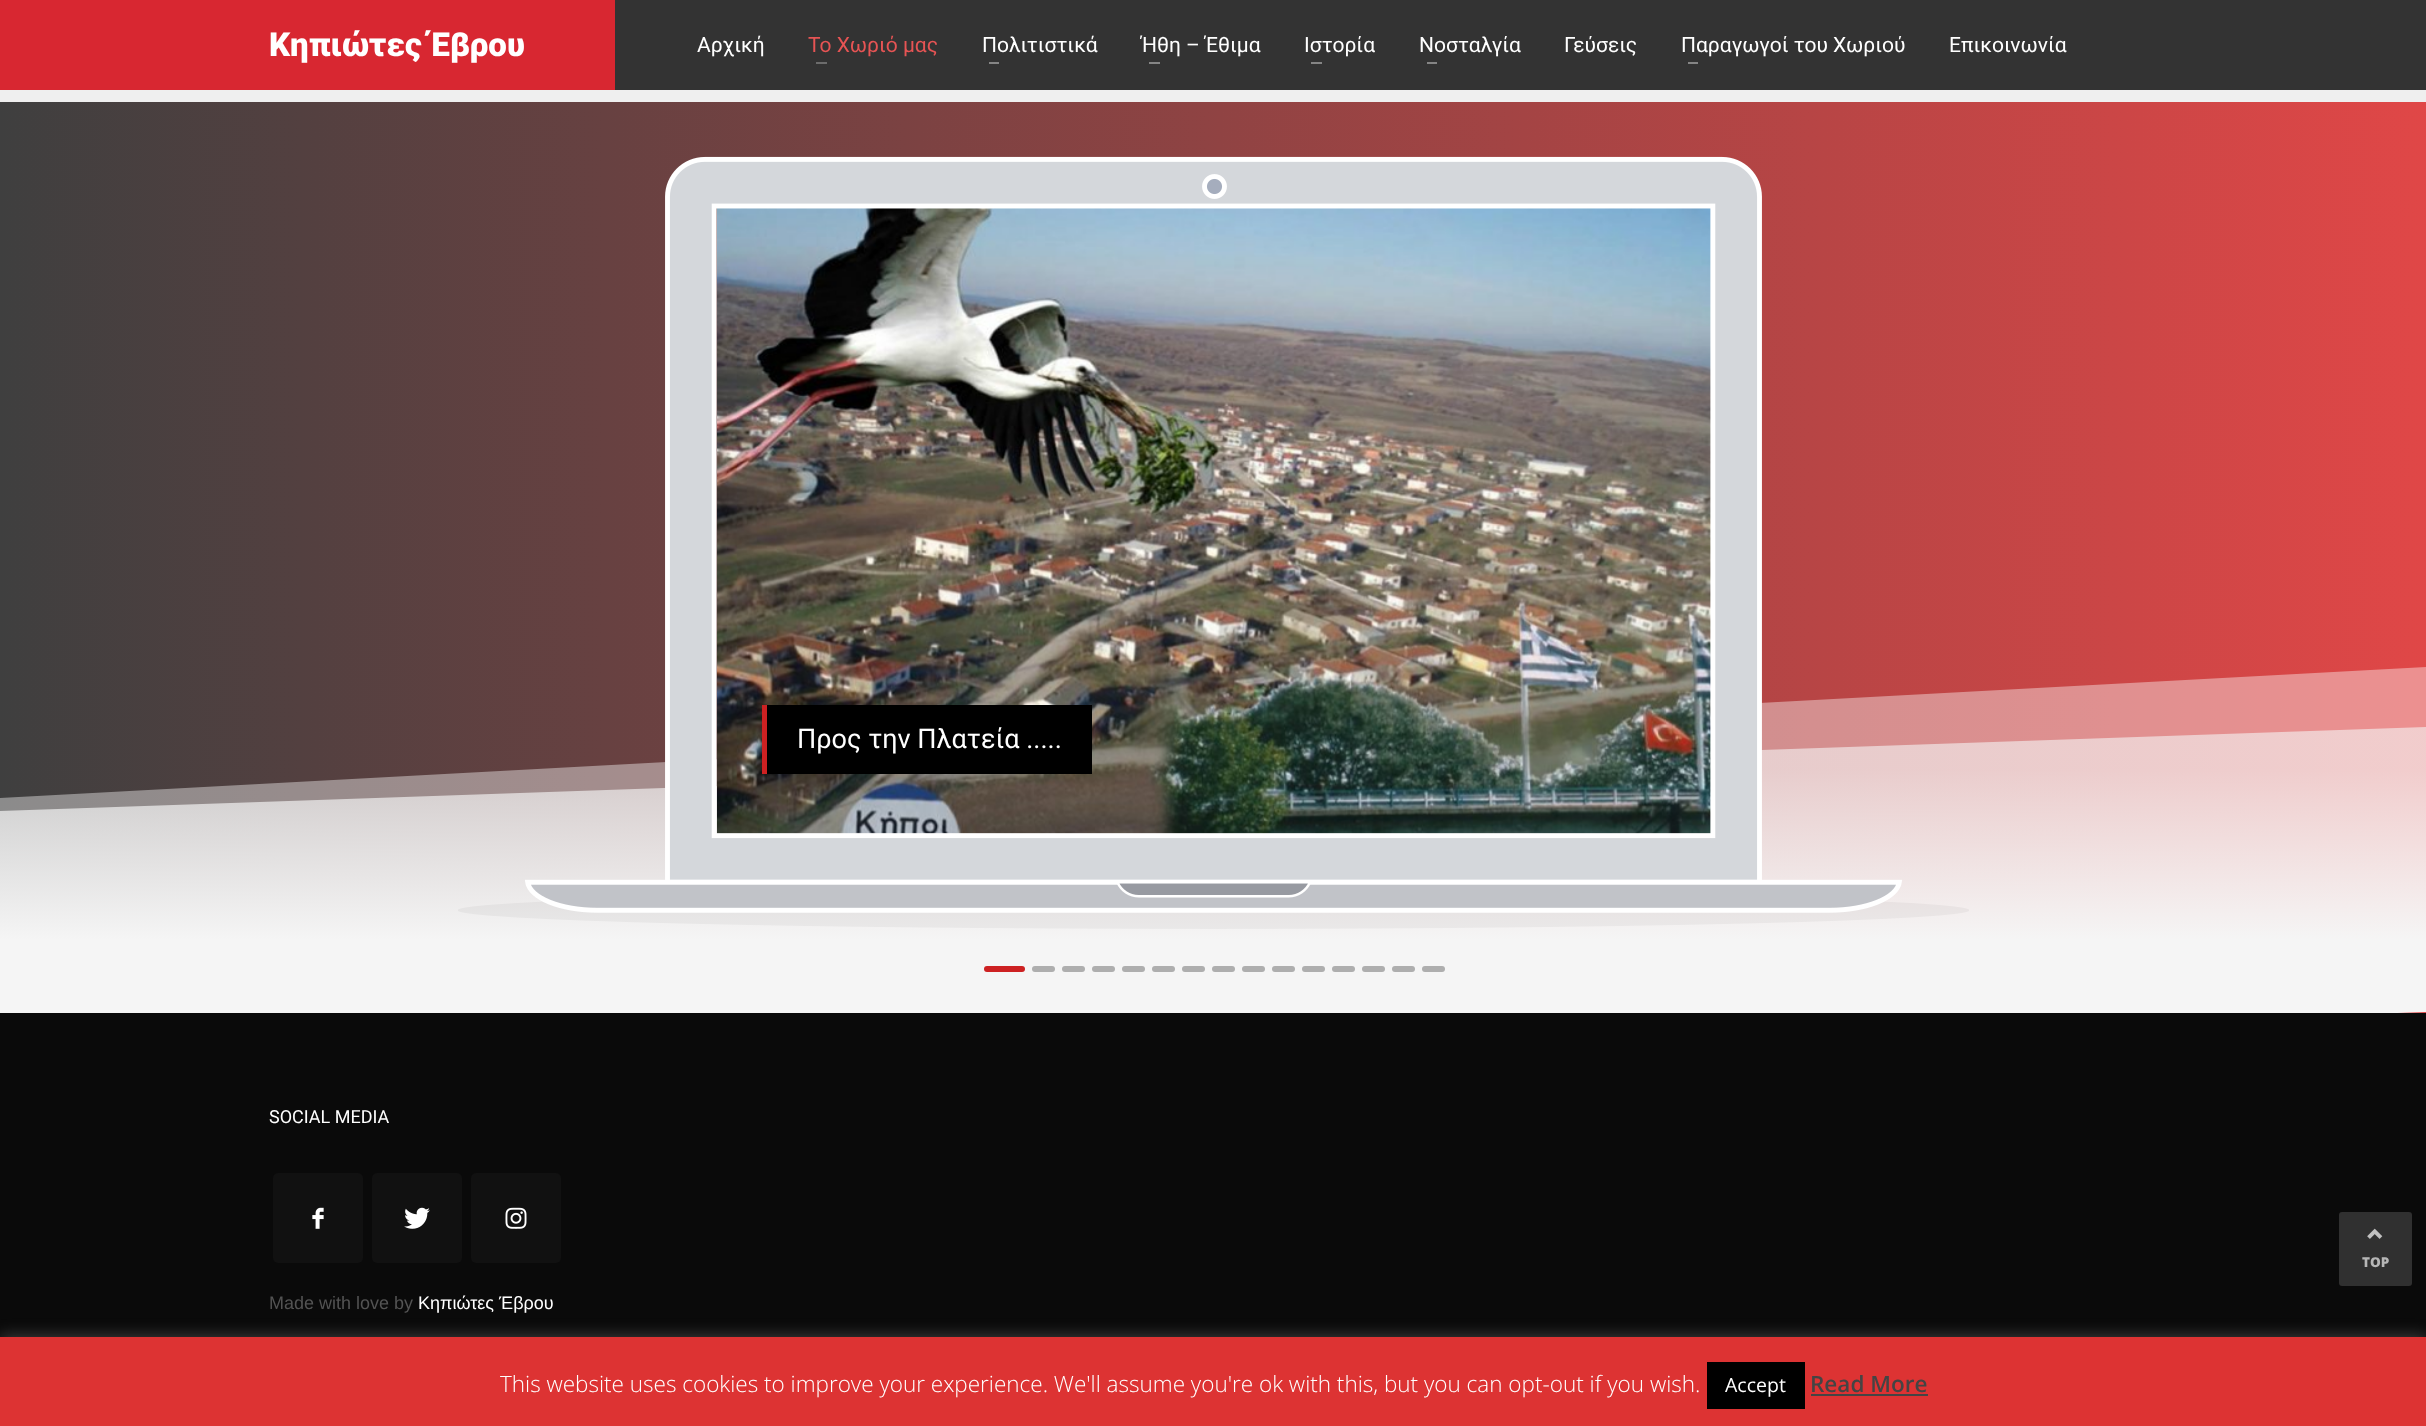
<!DOCTYPE html>
<meta charset="utf-8">
<style>body { margin: 0 } canvas { display: block }</style>
<canvas id="canvas" width="2426" height="1426"></canvas>
<img id="img1" src="images/2.png" hidden>
<img id="img2" src="images/3.png" hidden>
<img id="img3" src="images/4.png" hidden>
<img id="img4" src="images/5.png" hidden>
<img id="img5" src="images/6.png" hidden>
<img id="img6" src="images/1.png" hidden>
<script>
window.onload = function () {
    const canvas = document.getElementById('canvas');
    const context = canvas.getContext('2d');
    context.miterLimit = 4;
    context.fontKerning = 'normal';
    let gradient;

    context.fillStyle = 'rgb(239, 239, 239)';
    context.fillRect(0, 0, 2426, 1426);
    context.fillStyle = 'rgb(51, 51, 51)';
    context.fillRect(615, 0, 1811, 90);
    context.fillStyle = 'rgb(216, 39, 49)';
    context.fillRect(0, 0, 615, 90);
    context.fillStyle = 'rgb(108, 108, 108)';
    context.fillRect(816, 62, 11, 2);
    context.fillStyle = 'rgb(133, 133, 133)';
    context.fillRect(989, 62, 10, 2);
    context.fillRect(1149, 62, 11, 2);
    context.fillRect(1311, 62, 11, 2);
    context.fillRect(1427, 62, 10, 2);
    context.fillRect(1688, 62, 10, 2);
    gradient = context.createLinearGradient(0, 557, 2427, 557);
    gradient.addColorStop(0, 'rgb(63, 63, 63)');
    gradient.addColorStop(1, 'rgb(224, 71, 71)');
    context.fillStyle = gradient;
    context.fillRect(0, 102, 2426, 911);
    context.fillStyle = 'rgba(255, 255, 255, 0.4)';
    context.beginPath();
    context.moveTo(0, 798);
    context.lineTo(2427, 667);
    context.lineTo(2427, 952);
    context.lineTo(0, 1083);
    context.closePath();
    context.fill();
    gradient = context.createLinearGradient(1214, 769, 1214, 1054);
    gradient.addColorStop(0, 'rgba(245, 245, 245, 0.6)');
    gradient.addColorStop(0.6, 'rgb(245, 245, 245)');
    context.fillStyle = gradient;
    context.beginPath();
    context.moveTo(0, 811);
    context.lineTo(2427, 727);
    context.lineTo(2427, 1012);
    context.lineTo(0, 1097);
    context.closePath();
    context.fill();
    context.drawImage(document.getElementById('img1'), 717, 208, 994, 626);
    context.fillStyle = 'rgb(0, 0, 0)';
    context.fillRect(767, 705, 325, 69);
    context.fillStyle = 'rgb(205, 33, 34)';
    context.fillRect(762, 705, 5, 69);
    context.beginPath();
    context.roundRect(984, 966, 41, 6, 3);
    context.fill();
    context.fillStyle = 'rgb(174, 174, 174)';
    context.beginPath();
    context.roundRect(1032, 966, 23, 6, 3);
    context.fill();
    context.beginPath();
    context.roundRect(1062, 966, 23, 6, 3);
    context.fill();
    context.beginPath();
    context.roundRect(1092, 966, 23, 6, 3);
    context.fill();
    context.beginPath();
    context.roundRect(1122, 966, 23, 6, 3);
    context.fill();
    context.beginPath();
    context.roundRect(1152, 966, 23, 6, 3);
    context.fill();
    context.beginPath();
    context.roundRect(1182, 966, 23, 6, 3);
    context.fill();
    context.beginPath();
    context.roundRect(1212, 966, 23, 6, 3);
    context.fill();
    context.beginPath();
    context.roundRect(1242, 966, 23, 6, 3);
    context.fill();
    context.beginPath();
    context.roundRect(1272, 966, 23, 6, 3);
    context.fill();
    context.beginPath();
    context.roundRect(1302, 966, 23, 6, 3);
    context.fill();
    context.beginPath();
    context.roundRect(1332, 966, 23, 6, 3);
    context.fill();
    context.beginPath();
    context.roundRect(1362, 966, 23, 6, 3);
    context.fill();
    context.beginPath();
    context.roundRect(1392, 966, 23, 6, 3);
    context.fill();
    context.beginPath();
    context.roundRect(1422, 966, 23, 6, 3);
    context.fill();
    context.fillStyle = 'rgb(10, 10, 10)';
    context.fillRect(0, 1013, 2426, 324);
    context.fillStyle = 'rgb(17, 17, 17)';
    context.beginPath();
    context.roundRect(273, 1173, 90, 90, 5);
    context.fill();
    context.drawImage(document.getElementById('img2'), 312, 1207, 12, 22);
    context.beginPath();
    context.roundRect(372, 1173, 90, 90, 5);
    context.fill();
    context.drawImage(document.getElementById('img3'), 404, 1207, 26, 22);
    context.beginPath();
    context.roundRect(471, 1173, 90, 90, 5);
    context.fill();
    context.drawImage(document.getElementById('img4'), 505, 1207, 22, 22);
    context.fillStyle = 'rgb(48, 48, 48)';
    context.beginPath();
    context.roundRect(2339, 1212, 73, 74, 3);
    context.fill();
    context.drawImage(document.getElementById('img5'), 2367, 1228, 16, 11);
    context.fillStyle = 'rgba(172, 171, 171, 0.3)';
    context.filter = 'blur(7.5px)';
    context.beginPath();
    context.rect(0, 1335, 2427, 90);
    context.fill();
    context.filter = 'none';
    context.fillStyle = 'rgb(221, 51, 51)';
    context.fillRect(0, 1337, 2426, 89);
    context.fillStyle = 'rgb(0, 0, 0)';
    context.fillRect(1707, 1362, 98, 47);
    context.fillStyle = 'rgb(68, 68, 68)';
    context.fillRect(1811, 1394, 117, 2);
    context.font = '900 33px Roboto';
    context.fillStyle = 'rgb(255, 255, 255)';
    context.fillText('Κηπιώτες Έβρου', 269, 56);
    context.font = '21px Roboto';
    context.fillText('Αρχική', 697, 52);
    context.fillStyle = 'rgb(230, 84, 84)';
    context.fillText('Το Χωριό μας', 808, 52);
    context.fillStyle = 'rgb(255, 255, 255)';
    context.fillText('Πολιτιστικά', 982, 52);
    context.fillText('Ήθη – Έθιμα', 1141, 52);
    context.fillText('Ιστορία', 1304, 52);
    context.fillText('Νοσταλγία', 1419, 52);
    context.fillText('Γεύσεις', 1564, 52);
    context.fillText('Παραγωγοί του Χωριού', 1681, 52);
    context.fillText('Επικοινωνία', 1949, 52);
    context.font = '27px Roboto';
    context.fillText('Προς την Πλατεία .....', 797, 748);
    context.drawImage(document.getElementById('img6'), 458, 156, 1511, 773);
    context.font = '18px Roboto';
    context.fillText('SOCIAL MEDIA', 269, 1123);
    context.font = '18px Liberation Sans';
    context.fillStyle = 'rgb(83, 83, 83)';
    context.fillText('Made with love by', 269, 1309);
    context.fillStyle = 'rgb(255, 255, 255)';
    context.fillText('Κηπιώτες Έβρου', 418, 1309);
    context.font = '800 13.5px Open Sans';
    context.fillStyle = 'rgb(182, 182, 182)';
    context.fillText('TOP', 2362, 1267);
    context.font = '300 22.5px Open Sans';
    context.fillStyle = 'rgb(255, 255, 255)';
    context.fillText('This website uses cookies to improve your experience. We\'ll assume you\'re ok with this, but you can opt-out if you wish.', 500, 1392);
    context.font = '19.5px Open Sans';
    context.fillText('Accept', 1725, 1392);
    context.font = '600 22.5px Open Sans';
    context.fillStyle = 'rgb(68, 68, 68)';
    context.fillText('Read More', 1810, 1392);
};
</script>
